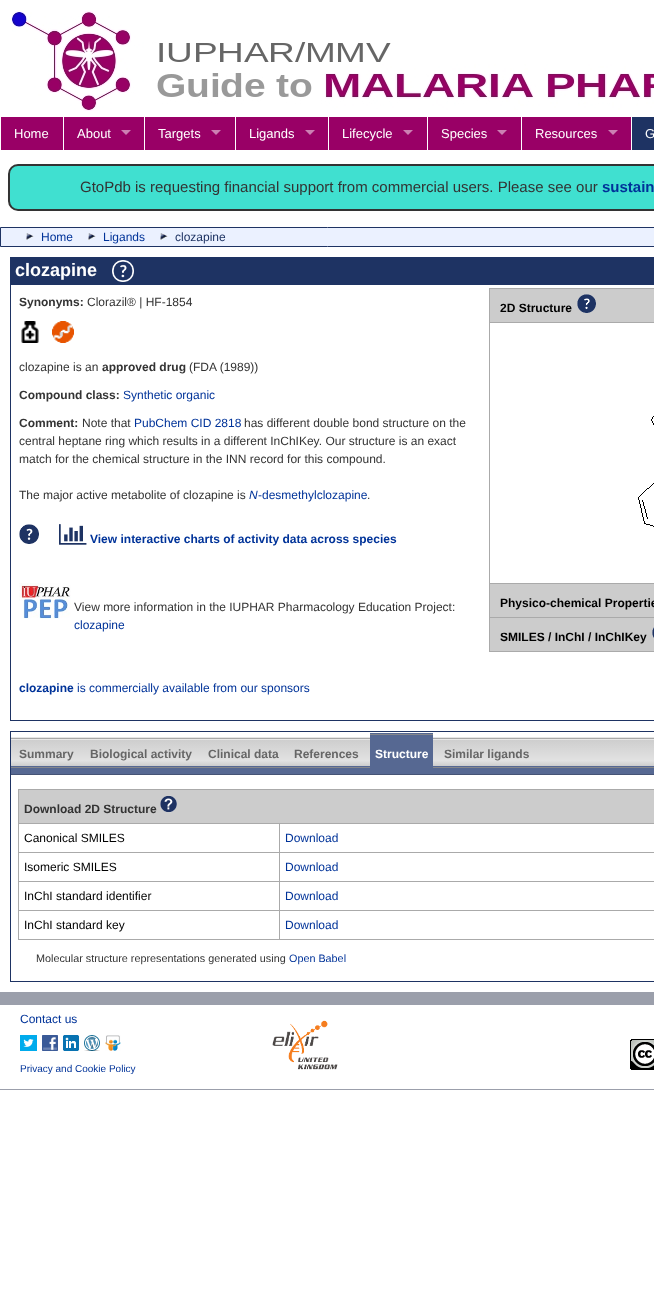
<!DOCTYPE html>
<meta charset="utf-8">
<style>body { margin: 0 } canvas { display: block }</style>
<canvas id="canvas" width="654" height="1308"></canvas>
<img id="img1" src="images/1.png" hidden>
<img id="img2" src="images/2.png" hidden>
<img id="img3" src="images/3.png" hidden>
<img id="img4" src="images/4.png" hidden>
<img id="img5" src="images/5.png" hidden>
<img id="img6" src="images/6.png" hidden>
<img id="img7" src="images/7.png" hidden>
<img id="img8" src="images/8.png" hidden>
<img id="img9" src="images/9.png" hidden>
<img id="img10" src="images/10.png" hidden>
<img id="img11" src="images/11.png" hidden>
<img id="img12" src="images/12.png" hidden>
<img id="img13" src="images/13.png" hidden>
<img id="img14" src="images/14.png" hidden>
<img id="img15" src="images/15.png" hidden>
<img id="img16" src="images/16.png" hidden>
<img id="img17" src="images/17.png" hidden>
<img id="img18" src="images/18.png" hidden>
<img id="img19" src="images/19.png" hidden>
<script>
window.onload = function () {
    const canvas = document.getElementById('canvas');
    const context = canvas.getContext('2d');
    context.miterLimit = 4;
    context.fontKerning = 'normal';
    let gradient;

    context.fillStyle = 'rgb(255, 255, 255)';
    context.fillRect(0, 0, 654, 1308);
    context.drawImage(document.getElementById('img1'), 11, 11, 643, 100);
    context.fillStyle = 'rgb(153, 0, 102)';
    context.fillRect(1, 117, 630, 33);
    context.fillStyle = 'rgb(255, 255, 255)';
    context.fillRect(63, 117, 1, 33);
    context.fillStyle = 'rgb(204, 128, 179)';
    context.beginPath();
    context.moveTo(121, 130);
    context.lineTo(131, 130);
    context.lineTo(126, 135);
    context.closePath();
    context.fill();
    context.fillStyle = 'rgb(255, 255, 255)';
    context.fillRect(144, 117, 1, 33);
    context.fillStyle = 'rgb(204, 128, 179)';
    context.beginPath();
    context.moveTo(211, 130);
    context.lineTo(221, 130);
    context.lineTo(216, 135);
    context.closePath();
    context.fill();
    context.fillStyle = 'rgb(255, 255, 255)';
    context.fillRect(235, 117, 1, 33);
    context.fillStyle = 'rgb(204, 128, 179)';
    context.beginPath();
    context.moveTo(305, 130);
    context.lineTo(315, 130);
    context.lineTo(310, 135);
    context.closePath();
    context.fill();
    context.fillStyle = 'rgb(255, 255, 255)';
    context.fillRect(328, 117, 1, 33);
    context.fillStyle = 'rgb(204, 128, 179)';
    context.beginPath();
    context.moveTo(403, 130);
    context.lineTo(413, 130);
    context.lineTo(408, 135);
    context.closePath();
    context.fill();
    context.fillStyle = 'rgb(255, 255, 255)';
    context.fillRect(427, 117, 1, 33);
    context.fillStyle = 'rgb(204, 128, 179)';
    context.beginPath();
    context.moveTo(497, 130);
    context.lineTo(507, 130);
    context.lineTo(502, 135);
    context.closePath();
    context.fill();
    context.fillStyle = 'rgb(255, 255, 255)';
    context.fillRect(521, 117, 1, 33);
    context.fillStyle = 'rgb(204, 128, 179)';
    context.beginPath();
    context.moveTo(608, 130);
    context.lineTo(618, 130);
    context.lineTo(613, 135);
    context.closePath();
    context.fill();
    context.fillStyle = 'rgb(30, 51, 99)';
    context.fillRect(632, 117, 22, 33);
    context.fillStyle = 'rgb(64, 224, 208)';
    context.beginPath();
    context.roundRect(9, 165, 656, 45, 9);
    context.fill();
    context.strokeStyle = 'rgb(51, 51, 51)';
    context.lineWidth = 2;
    context.stroke();
    context.fillStyle = 'rgb(235, 241, 255)';
    context.beginPath();
    context.rect(0.5, 227.5, 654, 19);
    context.fill();
    context.strokeStyle = 'rgb(30, 51, 99)';
    context.lineWidth = 1;
    context.stroke();
    context.drawImage(document.getElementById('img2'), 26, 233, 8, 7);
    context.drawImage(document.getElementById('img2'), 88, 233, 8, 7);
    context.drawImage(document.getElementById('img2'), 160, 233, 8, 7);
    context.fillStyle = 'rgb(30, 51, 99)';
    context.fillRect(10, 257, 644, 27);
    context.drawImage(document.getElementById('img3'), 112, 260, 22, 22);
    context.strokeRect(10.5, 284.5, 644, 436);
    context.drawImage(document.getElementById('img4'), 21, 321, 18, 22);
    context.drawImage(document.getElementById('img5'), 52, 321, 22, 22);
    context.drawImage(document.getElementById('img6'), 19, 524, 20, 20);
    context.drawImage(document.getElementById('img7'), 59, 524, 28, 21);
    context.drawImage(document.getElementById('img8'), 19, 583, 52, 36);
    context.fillStyle = 'rgb(170, 170, 170)';
    context.fillRect(489, 288, 165, 1);
    context.fillRect(489, 322, 165, 1);
    context.fillRect(489, 583, 165, 1);
    context.fillRect(489, 617, 165, 1);
    context.fillRect(489, 651, 165, 1);
    context.fillRect(489, 617, 1, 35);
    context.fillRect(489, 583, 1, 35);
    context.fillRect(489, 322, 1, 262);
    context.fillRect(489, 288, 1, 35);
    context.fillStyle = 'rgb(204, 204, 204)';
    context.fillRect(490, 289, 164, 33);
    context.drawImage(document.getElementById('img9'), 577, 294, 19, 19);
    context.drawImage(document.getElementById('img10'), 638, 416, 16, 111);
    context.fillRect(490, 584, 164, 33);
    context.fillRect(490, 618, 164, 33);
    context.drawImage(document.getElementById('img11'), 652, 627, 2, 11);
    context.strokeRect(10.5, 731.5, 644, 250);
    context.fillStyle = 'rgba(0, 0, 0, 0.1)';
    context.filter = 'blur(0.5px)';
    context.beginPath();
    context.rect(11, 737, 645, 28);
    context.fill();
    context.filter = 'none';
    context.fillStyle = 'rgb(69, 83, 117)';
    context.fillRect(11, 774, 643, 1);
    context.fillStyle = 'rgb(86, 104, 146)';
    context.fillRect(11, 768, 643, 6);
    context.fillStyle = 'rgb(133, 135, 140)';
    context.fillRect(11, 767, 643, 1);
    context.fillStyle = 'rgb(86, 104, 146)';
    context.fillRect(11, 766, 643, 1);
    gradient = context.createLinearGradient(480, 739, 480, 766);
    gradient.addColorStop(0, 'rgb(205, 205, 205)');
    gradient.addColorStop(0.8, 'rgb(226, 226, 226)');
    gradient.addColorStop(1, 'rgb(205, 205, 205)');
    context.fillStyle = gradient;
    context.fillRect(11, 740, 643, 26);
    context.fillStyle = 'rgb(233, 233, 233)';
    context.fillRect(11, 739, 643, 1);
    context.fillStyle = 'rgb(168, 168, 168)';
    context.fillRect(11, 738, 643, 1);
    context.fillStyle = 'rgb(86, 104, 146)';
    context.fillRect(370, 733, 63, 1);
    context.fillStyle = 'rgb(133, 135, 140)';
    context.fillRect(370, 734, 63, 1);
    context.fillStyle = 'rgb(86, 104, 146)';
    context.fillRect(370, 735, 63, 33);
    context.fillStyle = 'rgb(204, 204, 204)';
    context.fillRect(19, 790, 635, 33);
    context.fillStyle = 'rgb(170, 170, 170)';
    context.fillRect(18, 789, 636, 1);
    context.fillRect(18, 823, 636, 1);
    context.fillRect(18, 852, 636, 1);
    context.fillRect(18, 881, 636, 1);
    context.fillRect(18, 910, 636, 1);
    context.fillRect(18, 939, 636, 1);
    context.fillRect(18, 910, 1, 30);
    context.fillRect(18, 881, 1, 30);
    context.fillRect(18, 852, 1, 30);
    context.fillRect(18, 823, 1, 30);
    context.fillRect(18, 789, 1, 35);
    context.drawImage(document.getElementById('img12'), 160, 795, 17, 18);
    context.fillRect(279, 823, 1, 117);
    context.fillStyle = 'rgb(155, 159, 171)';
    context.fillRect(0, 992, 654, 13);
    context.fillRect(0, 1089, 654, 1);
    context.drawImage(document.getElementById('img13'), 20, 1035, 17, 16);
    context.drawImage(document.getElementById('img14'), 42, 1035, 16, 16);
    context.drawImage(document.getElementById('img15'), 63, 1035, 16, 16);
    context.drawImage(document.getElementById('img16'), 84, 1035, 16, 16);
    context.drawImage(document.getElementById('img17'), 105, 1035, 16, 16);
    context.drawImage(document.getElementById('img18'), 272, 1020, 66, 50);
    context.drawImage(document.getElementById('img19'), 630, 1039, 24, 31);
    context.font = '13px Liberation Sans';
    context.fillStyle = 'rgb(255, 255, 255)';
    context.fillText('Home', 14, 138);
    context.fillText('About', 77, 138);
    context.fillText('Targets', 158, 138);
    context.fillText('Ligands', 249, 138);
    context.fillText('Lifecycle', 342, 138);
    context.fillText('Species', 441, 138);
    context.fillText('Resources', 535, 138);
    context.fillText('G', 645, 138);
    context.font = '15px Liberation Sans';
    context.fillStyle = 'rgb(51, 51, 51)';
    context.fillText('GtoPdb is requesting financial support from commercial users. Please see our', 80, 192);
    context.font = 'bold 15px Liberation Sans';
    context.fillStyle = 'rgb(0, 51, 153)';
    context.fillText('sustain', 602, 192);
    context.font = '12px Liberation Sans';
    context.fillText('Home', 41, 241);
    context.fillText('Ligands', 103, 241);
    context.fillStyle = 'rgb(30, 51, 99)';
    context.fillText('clozapine', 175, 241);
    context.font = 'bold 18px Liberation Sans';
    context.fillStyle = 'rgb(255, 255, 255)';
    context.fillText('clozapine', 15, 276);
    context.font = 'bold 12px Liberation Sans';
    context.fillStyle = 'rgb(51, 51, 51)';
    context.fillText('Synonyms:', 19, 306);
    context.font = '12px Liberation Sans';
    context.fillText('Clorazil® | HF-1854', 87, 306);
    context.fillText('clozapine is an', 19, 371);
    context.font = 'bold 12px Liberation Sans';
    context.fillText('approved drug', 102, 371);
    context.font = '12px Liberation Sans';
    context.fillText('(FDA (1989))', 189, 371);
    context.font = 'bold 12px Liberation Sans';
    context.fillText('Compound class:', 19, 399);
    context.font = '12px Liberation Sans';
    context.fillStyle = 'rgb(0, 51, 153)';
    context.fillText('Synthetic organic', 123, 399);
    context.font = 'bold 12px Liberation Sans';
    context.fillStyle = 'rgb(51, 51, 51)';
    context.fillText('Comment:', 19, 427);
    context.font = '12px Liberation Sans';
    context.fillText('Note that', 82, 427);
    context.fillStyle = 'rgb(0, 51, 153)';
    context.fillText('PubChem CID 2818', 134, 427);
    context.fillStyle = 'rgb(51, 51, 51)';
    context.fillText('has different double bond structure on the', 244, 427);
    context.fillText('central heptane ring which results in a different InChIKey. Our structure is an exact', 19, 445);
    context.fillText('match for the chemical structure in the INN record for this compound.', 19, 463);
    context.fillText('The major active metabolite of clozapine is', 19, 499);
    context.font = 'italic 12px Liberation Sans';
    context.fillStyle = 'rgb(0, 51, 153)';
    context.fillText('N', 249, 499);
    context.font = '12px Liberation Sans';
    context.fillText('-desmethylclozapine', 258, 499);
    context.fillStyle = 'rgb(51, 51, 51)';
    context.fillText('.', 367, 499);
    context.font = 'bold 12px Liberation Sans';
    context.fillStyle = 'rgb(0, 51, 153)';
    context.fillText('View interactive charts of activity data across species', 90, 543);
    context.font = '12px Liberation Sans';
    context.fillStyle = 'rgb(51, 51, 51)';
    context.fillText('View more information in the IUPHAR Pharmacology Education Project:', 74, 611);
    context.fillStyle = 'rgb(0, 51, 153)';
    context.fillText('clozapine', 74, 629);
    context.font = 'bold 12px Liberation Sans';
    context.fillText('clozapine', 19, 692);
    context.font = '12px Liberation Sans';
    context.fillText('is commercially available from our sponsors', 77, 692);
    context.font = 'bold 12px Liberation Sans';
    context.fillStyle = 'rgb(0, 0, 0)';
    context.fillText('2D Structure', 500, 312);
    context.fillText('Physico-chemical Propertie', 500, 607);
    context.fillText('SMILES / InChI / InChIKey', 500, 641);
    context.fillStyle = 'rgb(102, 102, 102)';
    context.fillText('Summary', 19, 758);
    context.fillText('Biological activity', 90, 758);
    context.fillText('Clinical data', 208, 758);
    context.fillText('References', 294, 758);
    context.fillStyle = 'rgb(255, 255, 255)';
    context.fillText('Structure', 375, 758);
    context.fillStyle = 'rgb(102, 102, 102)';
    context.fillText('Similar ligands', 444, 758);
    context.fillStyle = 'rgb(51, 51, 51)';
    context.fillText('Download 2D Structure', 24, 813);
    context.font = '12px Liberation Sans';
    context.fillStyle = 'rgb(0, 0, 0)';
    context.fillText('Canonical SMILES', 24, 842);
    context.fillStyle = 'rgb(0, 51, 153)';
    context.fillText('Download', 285, 842);
    context.fillStyle = 'rgb(0, 0, 0)';
    context.fillText('Isomeric SMILES', 24, 871);
    context.fillStyle = 'rgb(0, 51, 153)';
    context.fillText('Download', 285, 871);
    context.fillStyle = 'rgb(0, 0, 0)';
    context.fillText('InChI standard identifier', 24, 900);
    context.fillStyle = 'rgb(0, 51, 153)';
    context.fillText('Download', 285, 900);
    context.fillStyle = 'rgb(0, 0, 0)';
    context.fillText('InChI standard key', 24, 929);
    context.fillStyle = 'rgb(0, 51, 153)';
    context.fillText('Download', 285, 929);
    context.font = '10.8px Liberation Sans';
    context.fillStyle = 'rgb(51, 51, 51)';
    context.fillText('Molecular structure representations generated using', 36, 962);
    context.fillStyle = 'rgb(0, 51, 153)';
    context.fillText('Open Babel', 289, 962);
    context.font = '12px Liberation Sans';
    context.fillText('Contact us', 20, 1023);
    context.font = '10px Liberation Sans';
    context.fillText('Privacy and Cookie Policy', 20, 1072);
};
</script>
